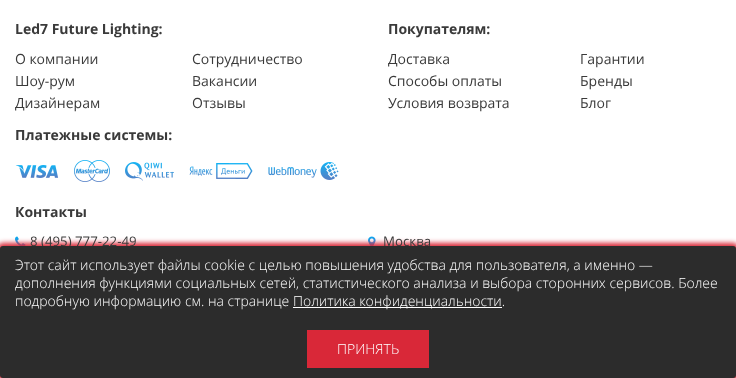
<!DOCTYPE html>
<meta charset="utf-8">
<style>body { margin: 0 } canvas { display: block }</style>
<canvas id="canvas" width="736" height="378"></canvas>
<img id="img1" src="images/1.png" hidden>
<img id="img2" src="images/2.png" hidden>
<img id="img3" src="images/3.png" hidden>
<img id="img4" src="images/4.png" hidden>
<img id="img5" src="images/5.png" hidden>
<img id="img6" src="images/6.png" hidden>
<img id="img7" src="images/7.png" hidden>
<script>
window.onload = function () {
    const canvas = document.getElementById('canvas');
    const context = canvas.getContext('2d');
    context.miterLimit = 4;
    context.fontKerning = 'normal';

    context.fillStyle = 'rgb(255, 255, 255)';
    context.fillRect(0, 0, 736, 378);
    context.drawImage(document.getElementById('img1'), 15, 165, 44, 13);
    context.drawImage(document.getElementById('img2'), 74, 160, 36, 22);
    context.drawImage(document.getElementById('img3'), 125, 162, 49, 19);
    context.drawImage(document.getElementById('img4'), 189, 163, 64, 16);
    context.drawImage(document.getElementById('img5'), 268, 162, 71, 18);
    context.drawImage(document.getElementById('img6'), 15, 236, 11, 10);
    context.drawImage(document.getElementById('img7'), 368, 236, 8, 10);
    context.fillStyle = 'rgb(217, 40, 56)';
    context.filter = 'blur(2.5px)';
    context.beginPath();
    context.roundRect(-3, 243, 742, 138, 6);
    context.fill();
    context.filter = 'none';
    context.font = 'bold 14px Open Sans';
    context.fillStyle = 'rgb(58, 58, 58)';
    context.fillText('Led7 Future Lighting:', 15, 34);
    context.font = '14px Open Sans';
    context.fillText('О компании', 15, 64);
    context.fillText('Сотрудничество', 192, 64);
    context.fillText('Шоу-рум', 15, 86);
    context.fillText('Вакансии', 192, 86);
    context.fillText('Дизайнерам', 15, 108);
    context.fillText('Отзывы', 192, 108);
    context.font = 'bold 14px Open Sans';
    context.fillText('Покупателям:', 388, 34);
    context.font = '14px Open Sans';
    context.fillText('Доставка', 388, 64);
    context.fillText('Гарантии', 580, 64);
    context.fillText('Способы оплаты', 388, 86);
    context.fillText('Бренды', 580, 86);
    context.fillText('Условия возврата', 388, 108);
    context.fillText('Блог', 580, 108);
    context.font = 'bold 14px Open Sans';
    context.fillText('Платежные системы:', 15, 140);
    context.fillText('Контакты', 15, 217);
    context.font = '13.25px Open Sans';
    context.fillText('8 (495) 777-22-49', 30, 246);
    context.fillText('Москва', 383, 246);
    context.fillStyle = 'rgb(44, 44, 44)';
    context.beginPath();
    context.roundRect(0, 246, 736, 132, 3);
    context.fill();
    context.font = '300 14px Open Sans';
    context.fillStyle = 'rgb(255, 255, 255)';
    context.fillText('Этот сайт использует файлы cookie с целью повышения удобства для пользователя, а именно —', 15, 270);
    context.fillText('дополнения функциями социальных сетей, статистического анализа и выбора сторонних сервисов. Более', 15, 288);
    context.fillText('подробную информацию см. на странице', 15, 306);
    context.fillRect(293, 307, 209, 1);
    context.fillText('Политика конфиденциальности.', 293, 306);
    context.fillStyle = 'rgb(217, 40, 56)';
    context.fillRect(307, 330, 122, 38);
    context.fillStyle = 'rgb(255, 255, 255)';
    context.fillText('ПРИНЯТЬ', 337, 354);
};
</script>
